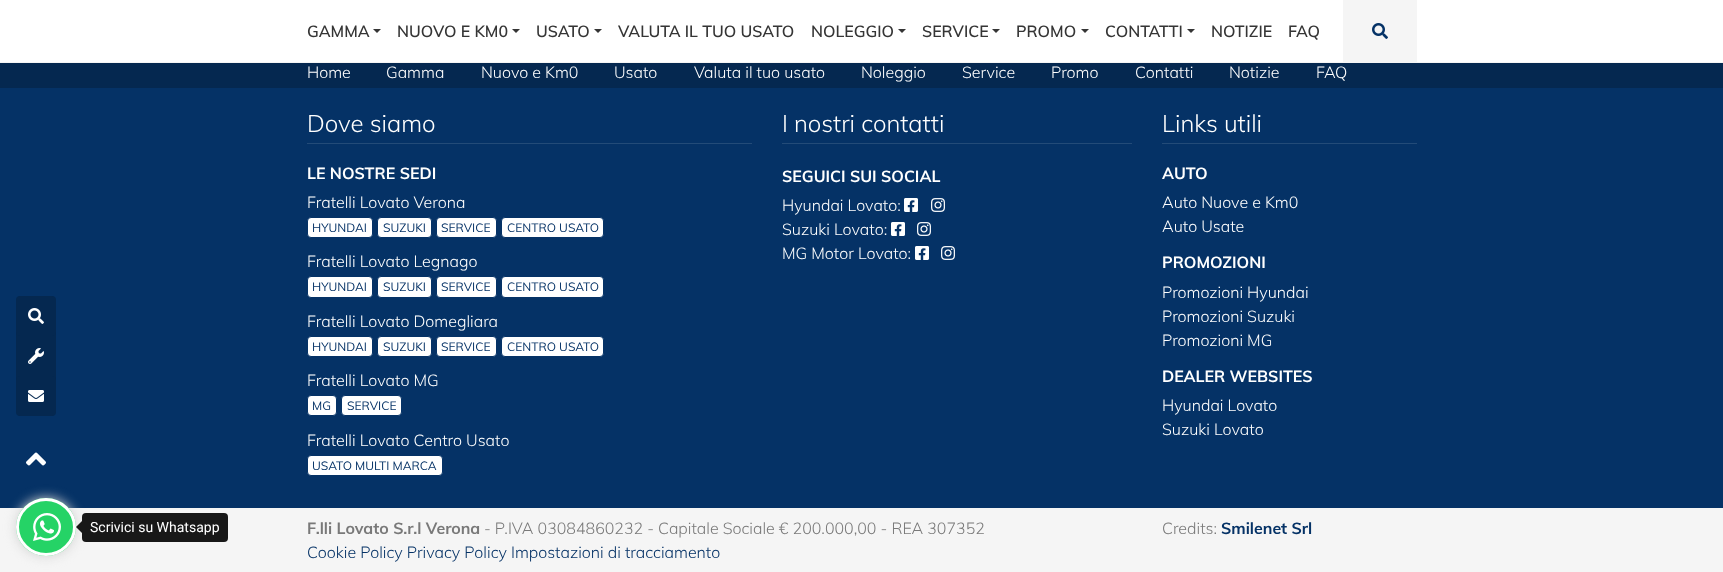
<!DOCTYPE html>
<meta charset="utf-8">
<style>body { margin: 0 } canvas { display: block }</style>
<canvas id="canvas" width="1723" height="572"></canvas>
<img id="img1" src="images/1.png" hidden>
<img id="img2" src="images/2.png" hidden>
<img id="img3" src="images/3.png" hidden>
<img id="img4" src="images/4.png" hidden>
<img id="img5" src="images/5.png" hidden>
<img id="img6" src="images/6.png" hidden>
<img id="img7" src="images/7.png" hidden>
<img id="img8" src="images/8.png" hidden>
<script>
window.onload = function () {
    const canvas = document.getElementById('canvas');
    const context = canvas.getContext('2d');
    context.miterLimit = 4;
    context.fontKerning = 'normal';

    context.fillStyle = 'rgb(5, 40, 80)';
    context.fillRect(0, 0, 1723, 572);
    context.fillStyle = 'rgb(255, 255, 255)';
    context.fillRect(0, 0, 1723, 62);
    context.fillStyle = 'rgb(245, 245, 245)';
    context.fillRect(0, 62, 1723, 1);
    context.fillStyle = 'rgb(53, 53, 53)';
    context.beginPath();
    context.moveTo(373, 29);
    context.lineTo(381, 29);
    context.lineTo(377, 33);
    context.closePath();
    context.fill();
    context.beginPath();
    context.moveTo(512, 29);
    context.lineTo(520, 29);
    context.lineTo(516, 33);
    context.closePath();
    context.fill();
    context.beginPath();
    context.moveTo(594, 29);
    context.lineTo(602, 29);
    context.lineTo(598, 33);
    context.closePath();
    context.fill();
    context.beginPath();
    context.moveTo(898, 29);
    context.lineTo(906, 29);
    context.lineTo(902, 33);
    context.closePath();
    context.fill();
    context.beginPath();
    context.moveTo(992, 29);
    context.lineTo(1000, 29);
    context.lineTo(996, 33);
    context.closePath();
    context.fill();
    context.beginPath();
    context.moveTo(1081, 29);
    context.lineTo(1089, 29);
    context.lineTo(1085, 33);
    context.closePath();
    context.fill();
    context.beginPath();
    context.moveTo(1187, 29);
    context.lineTo(1195, 29);
    context.lineTo(1191, 33);
    context.closePath();
    context.fill();
    context.fillStyle = 'rgb(245, 245, 245)';
    context.fillRect(1343, 0, 74, 62);
    context.drawImage(document.getElementById('img1'), 1372, 23, 16, 16);
    context.fillStyle = 'rgb(5, 50, 102)';
    context.fillRect(0, 88, 1723, 420);
    context.fillStyle = 'rgb(5, 40, 80)';
    context.beginPath();
    context.moveTo(20, 296);
    context.lineTo(52, 296);
    context.bezierCurveTo(54, 296, 56, 301, 56, 308);
    context.lineTo(56, 404);
    context.bezierCurveTo(56, 411, 54, 416, 52, 416);
    context.lineTo(20, 416);
    context.bezierCurveTo(18, 416, 16, 411, 16, 404);
    context.lineTo(16, 308);
    context.bezierCurveTo(16, 301, 18, 296, 20, 296);
    context.closePath();
    context.fill();
    context.beginPath();
    context.roundRect(16, 296, 40, 40, 4);
    context.fill();
    context.drawImage(document.getElementById('img2'), 28, 308, 16, 16);
    context.drawImage(document.getElementById('img3'), 28, 348, 16, 16);
    context.beginPath();
    context.roundRect(16, 376, 40, 40, 4);
    context.fill();
    context.drawImage(document.getElementById('img4'), 28, 390, 16, 12);
    context.drawImage(document.getElementById('img5'), 26, 452, 20, 14);
    context.fillStyle = 'rgb(245, 245, 245)';
    context.fillRect(0, 508, 1723, 64);
    context.fillStyle = 'rgb(209, 209, 209)';
    context.filter = 'blur(6px)';
    context.beginPath();
    context.roundRect(16, 498, 60, 58, 29);
    context.fill();
    context.filter = 'none';
    context.fillStyle = 'rgb(37, 211, 102)';
    context.beginPath();
    context.ellipse(46, 527, 30, 29, 0, 0, 2 * Math.PI);
    context.fill();
    context.beginPath();
    context.moveTo(46, 499.5);
    context.bezierCurveTo(61.5, 499.5, 74.5, 512, 74.5, 527);
    context.bezierCurveTo(74.5, 542, 61.5, 554.5, 46, 554.5);
    context.bezierCurveTo(30.5, 554.5, 17.5, 542, 17.5, 527);
    context.bezierCurveTo(17.5, 512, 30.5, 499.5, 46, 499.5);
    context.closePath();
    context.strokeStyle = 'rgb(255, 255, 255)';
    context.lineWidth = 3;
    context.stroke();
    context.drawImage(document.getElementById('img6'), 33, 513, 28, 28);
    context.fillStyle = 'rgba(0, 0, 0, 0.9)';
    context.beginPath();
    context.moveTo(82, 521);
    context.lineTo(82, 533);
    context.lineTo(76, 527);
    context.closePath();
    context.fill();
    context.beginPath();
    context.roundRect(82, 513, 146, 29, 4);
    context.fill();
    context.fillStyle = 'rgb(35, 75, 120)';
    context.fillRect(307, 143, 445, 1);
    context.fillStyle = 'rgb(255, 255, 255)';
    context.beginPath();
    context.roundRect(307.5, 217.5, 65, 20, 3.5);
    context.fill();
    context.strokeStyle = 'rgb(5, 50, 102)';
    context.lineWidth = 1;
    context.stroke();
    context.beginPath();
    context.roundRect(377.5, 217.5, 54, 20, 3.5);
    context.fill();
    context.stroke();
    context.beginPath();
    context.roundRect(436.5, 217.5, 60, 20, 3.5);
    context.fill();
    context.stroke();
    context.beginPath();
    context.roundRect(501.5, 217.5, 102, 20, 3.5);
    context.fill();
    context.stroke();
    context.beginPath();
    context.roundRect(307.5, 276.5, 65, 21, 3.5);
    context.fill();
    context.stroke();
    context.beginPath();
    context.roundRect(377.5, 276.5, 54, 21, 3.5);
    context.fill();
    context.stroke();
    context.beginPath();
    context.roundRect(436.5, 276.5, 60, 21, 3.5);
    context.fill();
    context.stroke();
    context.beginPath();
    context.roundRect(501.5, 276.5, 102, 21, 3.5);
    context.fill();
    context.stroke();
    context.beginPath();
    context.roundRect(307.5, 336.5, 65, 20, 3.5);
    context.fill();
    context.stroke();
    context.beginPath();
    context.roundRect(377.5, 336.5, 54, 20, 3.5);
    context.fill();
    context.stroke();
    context.beginPath();
    context.roundRect(436.5, 336.5, 60, 20, 3.5);
    context.fill();
    context.stroke();
    context.beginPath();
    context.roundRect(501.5, 336.5, 102, 20, 3.5);
    context.fill();
    context.stroke();
    context.beginPath();
    context.roundRect(307.5, 395.5, 29, 20, 3.5);
    context.fill();
    context.stroke();
    context.beginPath();
    context.roundRect(341.5, 395.5, 60, 20, 3.5);
    context.fill();
    context.stroke();
    context.beginPath();
    context.roundRect(307.5, 455.5, 135, 20, 3.5);
    context.fill();
    context.stroke();
    context.fillStyle = 'rgb(35, 75, 120)';
    context.fillRect(782, 143, 350, 1);
    context.drawImage(document.getElementById('img7'), 904, 198, 14, 14);
    context.drawImage(document.getElementById('img8'), 931, 198, 14, 14);
    context.drawImage(document.getElementById('img7'), 891, 222, 14, 14);
    context.drawImage(document.getElementById('img8'), 917, 222, 14, 14);
    context.drawImage(document.getElementById('img7'), 915, 246, 14, 14);
    context.drawImage(document.getElementById('img8'), 941, 246, 14, 14);
    context.fillRect(1162, 143, 255, 1);
    context.font = '600 16px Muli';
    context.fillStyle = 'rgb(53, 53, 53)';
    context.fillText('GAMMA', 307, 37);
    context.fillText('NUOVO E KM0', 397, 37);
    context.fillText('USATO', 536, 37);
    context.fillText('VALUTA IL TUO USATO', 618, 37);
    context.fillText('NOLEGGIO', 811, 37);
    context.fillText('SERVICE', 922, 37);
    context.fillText('PROMO', 1016, 37);
    context.fillText('CONTATTI', 1105, 37);
    context.fillText('NOTIZIE', 1211, 37);
    context.fillText('FAQ', 1288, 37);
    context.font = '14px Roboto';
    context.fillStyle = 'rgb(255, 255, 255)';
    context.fillText('Scrivici su Whatsapp', 90, 532);
    context.font = '300 16px Muli';
    context.fillText('Home', 307, 78);
    context.fillText('Gamma', 386, 78);
    context.fillText('Nuovo e Km0', 481, 78);
    context.fillText('Usato', 614, 78);
    context.fillText('Valuta il tuo usato', 694, 78);
    context.fillText('Noleggio', 861, 78);
    context.fillText('Service', 962, 78);
    context.fillText('Promo', 1051, 78);
    context.fillText('Contatti', 1135, 78);
    context.fillText('Notizie', 1229, 78);
    context.fillText('FAQ', 1316, 78);
    context.font = '300 24px Muli';
    context.fillText('Dove siamo', 307, 132);
    context.font = 'bold 16px Muli';
    context.fillText('LE NOSTRE SEDI', 307, 179);
    context.font = '300 16px Muli';
    context.fillText('Fratelli Lovato Verona', 307, 208);
    context.font = '12px Muli';
    context.fillStyle = 'rgb(5, 50, 102)';
    context.fillText('HYUNDAI', 312, 232);
    context.fillText('SUZUKI', 383, 232);
    context.fillText('SERVICE', 441, 232);
    context.fillText('CENTRO USATO', 507, 232);
    context.font = '300 16px Muli';
    context.fillStyle = 'rgb(255, 255, 255)';
    context.fillText('Fratelli Lovato Legnago', 307, 267);
    context.font = '12px Muli';
    context.fillStyle = 'rgb(5, 50, 102)';
    context.fillText('HYUNDAI', 312, 291);
    context.fillText('SUZUKI', 383, 291);
    context.fillText('SERVICE', 441, 291);
    context.fillText('CENTRO USATO', 507, 291);
    context.font = '300 16px Muli';
    context.fillStyle = 'rgb(255, 255, 255)';
    context.fillText('Fratelli Lovato Domegliara', 307, 327);
    context.font = '12px Muli';
    context.fillStyle = 'rgb(5, 50, 102)';
    context.fillText('HYUNDAI', 312, 351);
    context.fillText('SUZUKI', 383, 351);
    context.fillText('SERVICE', 441, 351);
    context.fillText('CENTRO USATO', 507, 351);
    context.font = '300 16px Muli';
    context.fillStyle = 'rgb(255, 255, 255)';
    context.fillText('Fratelli Lovato MG', 307, 386);
    context.font = '12px Muli';
    context.fillStyle = 'rgb(5, 50, 102)';
    context.fillText('MG', 312, 410);
    context.fillText('SERVICE', 347, 410);
    context.font = '300 16px Muli';
    context.fillStyle = 'rgb(255, 255, 255)';
    context.fillText('Fratelli Lovato Centro Usato', 307, 446);
    context.font = '12px Muli';
    context.fillStyle = 'rgb(5, 50, 102)';
    context.fillText('USATO MULTI MARCA', 312, 470);
    context.font = '300 24px Muli';
    context.fillStyle = 'rgb(255, 255, 255)';
    context.fillText('I nostri contatti', 782, 132);
    context.font = 'bold 16px Muli';
    context.fillText('SEGUICI SUI SOCIAL', 782, 182);
    context.font = '300 16px Muli';
    context.fillText('Hyundai Lovato:', 782, 211);
    context.fillText('Suzuki Lovato:', 782, 235);
    context.fillText('MG Motor Lovato:', 782, 259);
    context.font = '300 24px Muli';
    context.fillText('Links utili', 1162, 132);
    context.font = 'bold 16px Muli';
    context.fillText('AUTO', 1162, 179);
    context.font = '300 16px Muli';
    context.fillText('Auto Nuove e Km0', 1162, 208);
    context.fillText('Auto Usate', 1162, 232);
    context.font = 'bold 16px Muli';
    context.fillText('PROMOZIONI', 1162, 268);
    context.font = '300 16px Muli';
    context.fillText('Promozioni Hyundai', 1162, 298);
    context.fillText('Promozioni Suzuki', 1162, 322);
    context.fillText('Promozioni MG', 1162, 346);
    context.font = 'bold 16px Muli';
    context.fillText('DEALER WEBSITES', 1162, 382);
    context.font = '300 16px Muli';
    context.fillText('Hyundai Lovato', 1162, 411);
    context.fillText('Suzuki Lovato', 1162, 435);
    context.font = 'bold 16px Muli';
    context.fillStyle = 'rgb(121, 121, 121)';
    context.fillText('F.lli Lovato S.r.l Verona', 307, 534);
    context.font = '300 16px Muli';
    context.fillText('- P.IVA 03084860232 - Capitale Sociale € 200.000,00 - REA 307352', 484, 534);
    context.fillStyle = 'rgb(5, 50, 102)';
    context.fillText('Cookie Policy Privacy Policy Impostazioni di tracciamento', 307, 558);
    context.fillStyle = 'rgb(121, 121, 121)';
    context.fillText('Credits:', 1162, 534);
    context.font = 'bold 16px Muli';
    context.fillStyle = 'rgb(5, 50, 102)';
    context.fillText('Smilenet Srl', 1221, 534);
};
</script>
